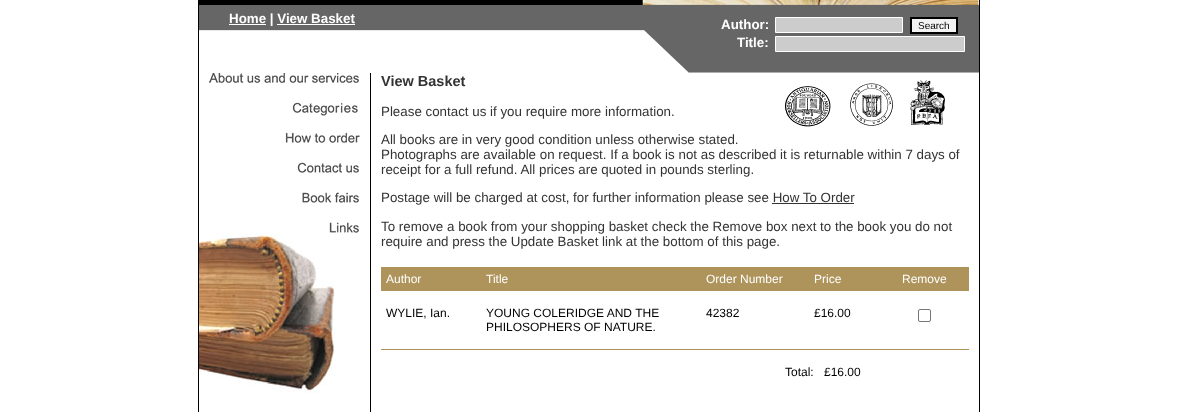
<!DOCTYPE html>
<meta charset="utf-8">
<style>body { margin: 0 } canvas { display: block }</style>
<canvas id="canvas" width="1178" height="412"></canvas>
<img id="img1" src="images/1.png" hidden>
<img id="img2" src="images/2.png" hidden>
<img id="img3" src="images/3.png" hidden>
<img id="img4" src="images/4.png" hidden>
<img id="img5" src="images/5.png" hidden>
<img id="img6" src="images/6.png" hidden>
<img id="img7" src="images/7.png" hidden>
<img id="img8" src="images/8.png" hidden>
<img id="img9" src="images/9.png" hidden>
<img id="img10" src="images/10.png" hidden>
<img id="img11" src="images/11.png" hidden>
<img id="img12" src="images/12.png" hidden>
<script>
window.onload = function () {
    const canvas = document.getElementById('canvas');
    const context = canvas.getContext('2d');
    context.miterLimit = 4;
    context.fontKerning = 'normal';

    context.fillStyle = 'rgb(255, 255, 255)';
    context.fillRect(0, 0, 1178, 412);
    context.strokeStyle = 'rgb(0, 0, 0)';
    context.strokeRect(198.5, -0.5, 781, 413);
    context.fillStyle = 'rgb(0, 0, 0)';
    context.fillRect(199, 0, 443, 5);
    context.drawImage(document.getElementById('img1'), 642, 0, 337, 5);
    context.drawImage(document.getElementById('img2'), 199, 5, 780, 68);
    context.fillStyle = 'rgb(255, 255, 255)';
    context.fillRect(229, 24, 37, 1);
    context.fillRect(277, 24, 78, 1);
    context.fillStyle = 'rgb(204, 204, 204)';
    context.beginPath();
    context.rect(775.5, 17.5, 127, 15);
    context.fill();
    context.strokeStyle = 'rgb(255, 255, 255)';
    context.stroke();
    context.fillStyle = 'rgb(243, 243, 243)';
    context.beginPath();
    context.rect(911, 18, 46, 15);
    context.fill();
    context.strokeStyle = 'rgb(0, 0, 0)';
    context.lineWidth = 2;
    context.stroke();
    context.fillStyle = 'rgb(204, 204, 204)';
    context.beginPath();
    context.rect(775.5, 36.5, 189, 15);
    context.fill();
    context.strokeStyle = 'rgb(255, 255, 255)';
    context.lineWidth = 1;
    context.stroke();
    context.drawImage(document.getElementById('img3'), 209, 73, 150, 10);
    context.drawImage(document.getElementById('img4'), 292, 102, 66, 14);
    context.drawImage(document.getElementById('img5'), 285, 132, 75, 11);
    context.drawImage(document.getElementById('img6'), 297, 162, 62, 11);
    context.drawImage(document.getElementById('img7'), 302, 192, 57, 11);
    context.drawImage(document.getElementById('img8'), 329, 222, 30, 11);
    context.drawImage(document.getElementById('img9'), 199, 233, 136, 160);
    context.fillStyle = 'rgb(0, 0, 0)';
    context.fillRect(370, 73, 1, 339);
    context.drawImage(document.getElementById('img10'), 785, 86, 46, 41);
    context.drawImage(document.getElementById('img11'), 850, 83, 43, 43);
    context.drawImage(document.getElementById('img12'), 910, 80, 35, 45);
    context.fillStyle = 'rgb(51, 51, 51)';
    context.fillRect(772, 203, 82, 1);
    context.fillStyle = 'rgb(174, 148, 91)';
    context.fillRect(381, 267, 588, 24);
    context.beginPath();
    context.roundRect(918.5, 309.5, 12, 12, 1.5);
    context.strokeStyle = 'rgb(118, 118, 118)';
    context.stroke();
    context.fillRect(381, 349, 588, 1);
    context.font = 'bold 13.35px Liberation Sans';
    context.fillStyle = 'rgb(255, 255, 255)';
    context.fillText('Home | View Basket', 229, 23);
    context.fillText('Author:', 721, 29);
    context.font = '10px Liberation Sans';
    context.fillStyle = 'rgb(0, 0, 0)';
    context.fillText('Search', 918, 29);
    context.font = 'bold 13.35px Liberation Sans';
    context.fillStyle = 'rgb(255, 255, 255)';
    context.fillText('Title:', 737, 47);
    context.font = 'bold 14.5px Liberation Sans';
    context.fillStyle = 'rgb(51, 51, 51)';
    context.fillText('View Basket', 381, 86);
    context.font = '13.35px Liberation Sans';
    context.fillText('Please contact us if you require more information.', 381, 116);
    context.fillText('All books are in very good condition unless otherwise stated.', 381, 144);
    context.fillText('Photographs are available on request. If a book is not as described it is returnable within 7 days of', 381, 159);
    context.fillText('receipt for a full refund. All prices are quoted in pounds sterling.', 381, 174);
    context.fillText('Postage will be charged at cost, for further information please see How To Order', 381, 202);
    context.fillText('To remove a book from your shopping basket check the Remove box next to the book you do not', 381, 231);
    context.fillText('require and press the Update Basket link at the bottom of this page.', 381, 246);
    context.font = '12px Liberation Sans';
    context.fillStyle = 'rgb(255, 255, 255)';
    context.fillText('Author', 386, 283);
    context.fillText('Title', 486, 283);
    context.fillText('Order Number', 706, 283);
    context.fillText('Price', 814, 283);
    context.fillText('Remove', 902, 283);
    context.fillStyle = 'rgb(0, 0, 0)';
    context.fillText('WYLIE, Ian.', 386, 317);
    context.fillText('YOUNG COLERIDGE AND THE', 486, 317);
    context.fillText('PHILOSOPHERS OF NATURE.', 486, 331);
    context.fillText('42382', 706, 317);
    context.fillText('£16.00', 814, 317);
    context.fillText('Total:', 785, 376);
    context.fillText('£16.00', 824, 376);
};
</script>
